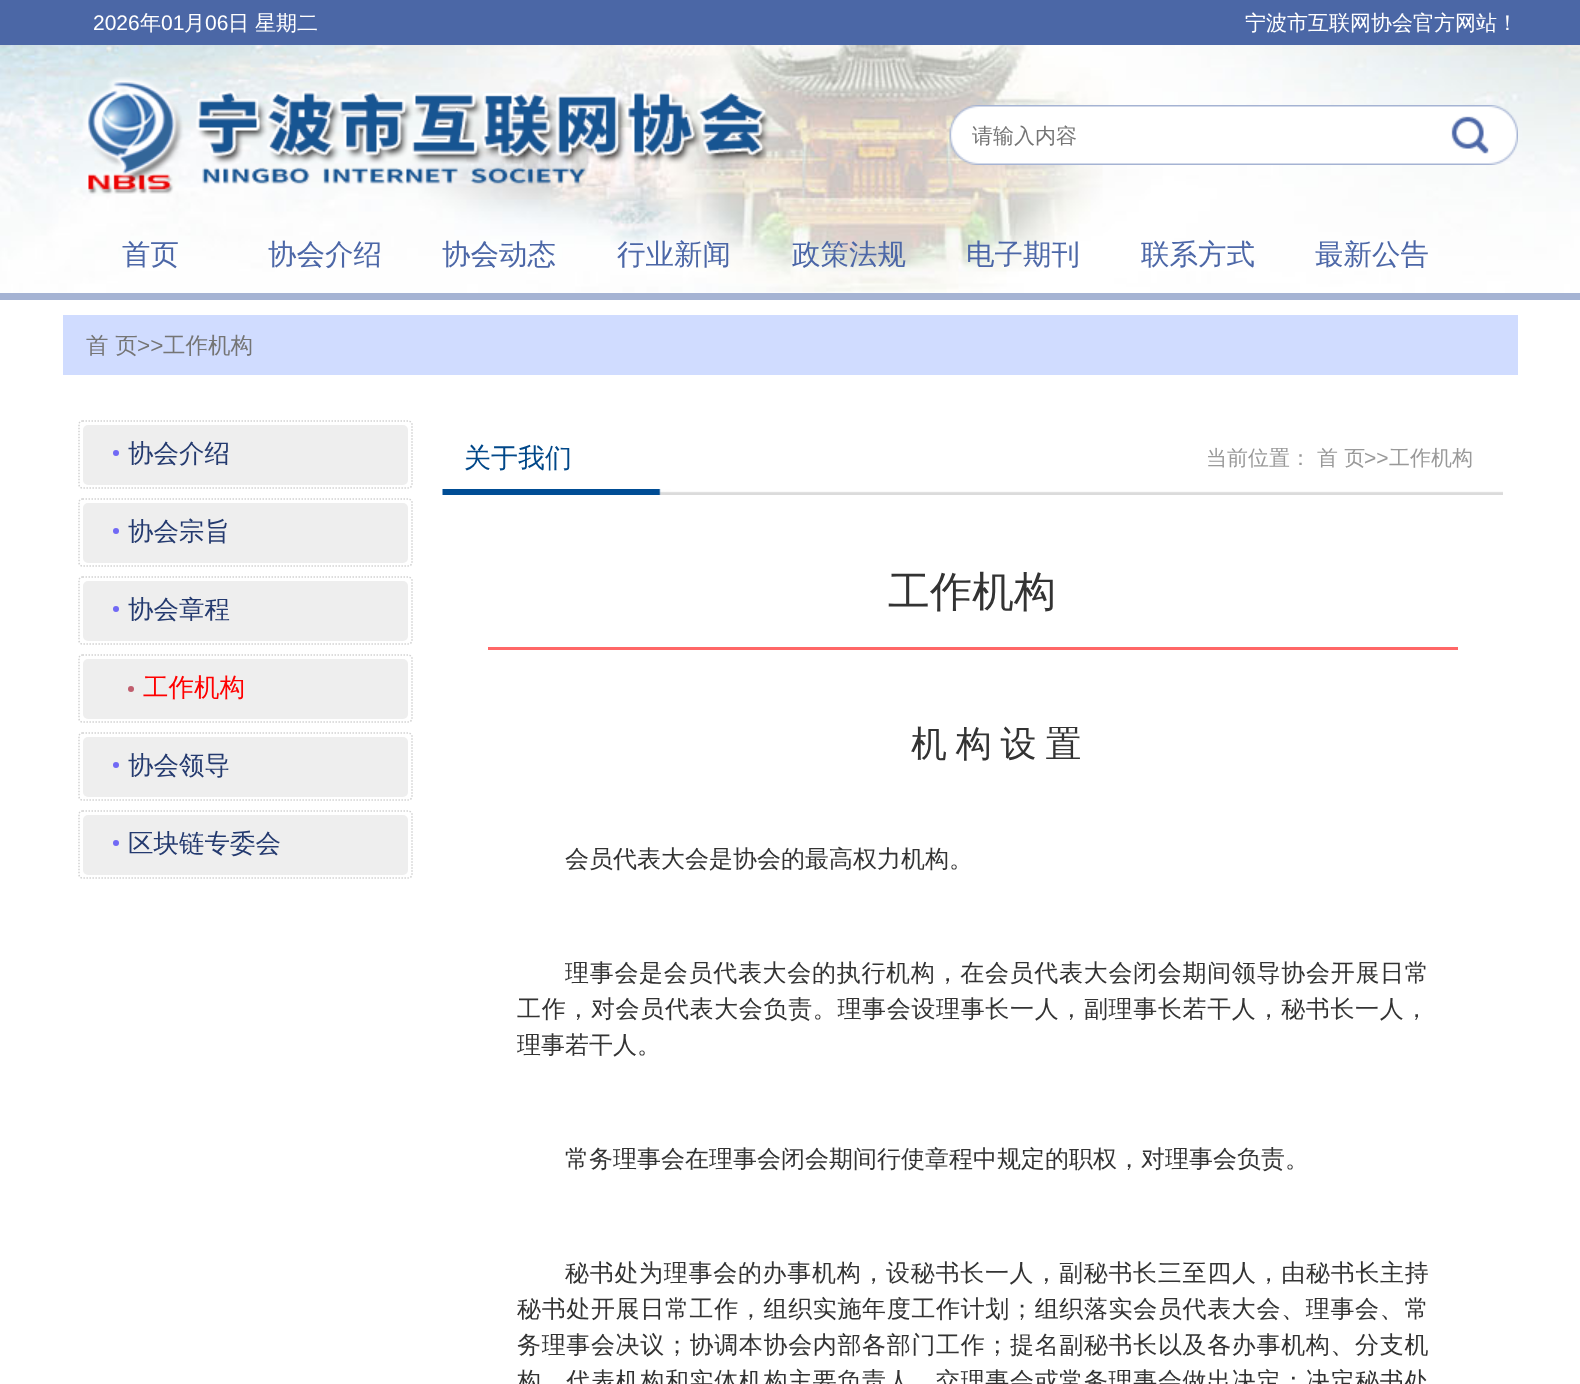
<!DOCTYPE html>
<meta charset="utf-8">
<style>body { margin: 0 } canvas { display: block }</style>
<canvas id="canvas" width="1580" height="1384"></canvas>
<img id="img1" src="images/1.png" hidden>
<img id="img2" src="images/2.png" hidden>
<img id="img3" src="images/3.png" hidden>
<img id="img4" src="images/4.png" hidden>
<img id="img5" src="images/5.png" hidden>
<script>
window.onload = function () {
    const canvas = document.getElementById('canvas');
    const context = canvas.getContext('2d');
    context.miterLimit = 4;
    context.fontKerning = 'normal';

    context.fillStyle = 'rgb(255, 255, 255)';
    context.fillRect(0, 0, 1580, 1384);
    context.drawImage(document.getElementById('img1'), 0, 45, 1580, 248);
    context.fillStyle = 'rgb(75, 103, 166)';
    context.fillRect(0, 0, 1580, 45);
    context.drawImage(document.getElementById('img2'), 83, 77, 688, 117);
    context.drawImage(document.getElementById('img3'), 949, 105, 480, 60);
    context.drawImage(document.getElementById('img4'), 1429, 105, 89, 60);
    context.fillStyle = 'rgb(165, 179, 211)';
    context.fillRect(0, 293, 1580, 7);
    context.fillStyle = 'rgb(208, 220, 255)';
    context.fillRect(63, 315, 1455, 60);
    context.beginPath();
    context.moveTo(82.5, 421);
    context.lineTo(408, 421);
    context.bezierCurveTo(410, 421, 412, 422.5, 412, 424.5);
    context.lineTo(412, 484.5);
    context.bezierCurveTo(412, 486.5, 410, 488, 408, 488);
    context.lineTo(82.5, 488);
    context.bezierCurveTo(80.5, 488, 79, 486.5, 79, 484.5);
    context.lineTo(79, 424.5);
    context.bezierCurveTo(79, 422.5, 80.5, 421, 82.5, 421);
    context.closePath();
    context.strokeStyle = 'rgb(210, 210, 210)';
    context.lineWidth = 1.5;
    context.setLineDash([1.5, 1.5]);
    context.stroke();
    context.fillStyle = 'rgb(238, 238, 238)';
    context.beginPath();
    context.roundRect(83, 425, 325, 60, 5);
    context.fill();
    context.fillStyle = 'rgb(113, 105, 245)';
    context.beginPath();
    context.arc(116, 453, 3, 0, 2 * Math.PI);
    context.fill();
    context.beginPath();
    context.moveTo(82.5, 499);
    context.lineTo(408, 499);
    context.bezierCurveTo(410, 499, 412, 500.5, 412, 502.5);
    context.lineTo(412, 562.5);
    context.bezierCurveTo(412, 564.5, 410, 566, 408, 566);
    context.lineTo(82.5, 566);
    context.bezierCurveTo(80.5, 566, 79, 564.5, 79, 562.5);
    context.lineTo(79, 502.5);
    context.bezierCurveTo(79, 500.5, 80.5, 499, 82.5, 499);
    context.closePath();
    context.stroke();
    context.fillStyle = 'rgb(238, 238, 238)';
    context.beginPath();
    context.roundRect(83, 503, 325, 60, 5);
    context.fill();
    context.fillStyle = 'rgb(113, 105, 245)';
    context.beginPath();
    context.arc(116, 531, 3, 0, 2 * Math.PI);
    context.fill();
    context.beginPath();
    context.moveTo(82.5, 577);
    context.lineTo(408, 577);
    context.bezierCurveTo(410, 577, 412, 578.5, 412, 580.5);
    context.lineTo(412, 640.5);
    context.bezierCurveTo(412, 642.5, 410, 644, 408, 644);
    context.lineTo(82.5, 644);
    context.bezierCurveTo(80.5, 644, 79, 642.5, 79, 640.5);
    context.lineTo(79, 580.5);
    context.bezierCurveTo(79, 578.5, 80.5, 577, 82.5, 577);
    context.closePath();
    context.stroke();
    context.fillStyle = 'rgb(238, 238, 238)';
    context.beginPath();
    context.roundRect(83, 581, 325, 60, 5);
    context.fill();
    context.fillStyle = 'rgb(113, 105, 245)';
    context.beginPath();
    context.arc(116, 609, 3, 0, 2 * Math.PI);
    context.fill();
    context.beginPath();
    context.moveTo(82.5, 655);
    context.lineTo(408, 655);
    context.bezierCurveTo(410, 655, 412, 656.5, 412, 658.5);
    context.lineTo(412, 718.5);
    context.bezierCurveTo(412, 720.5, 410, 722, 408, 722);
    context.lineTo(82.5, 722);
    context.bezierCurveTo(80.5, 722, 79, 720.5, 79, 718.5);
    context.lineTo(79, 658.5);
    context.bezierCurveTo(79, 656.5, 80.5, 655, 82.5, 655);
    context.closePath();
    context.stroke();
    context.fillStyle = 'rgb(238, 238, 238)';
    context.beginPath();
    context.roundRect(83, 659, 325, 60, 5);
    context.fill();
    context.fillStyle = 'rgb(192, 93, 109)';
    context.beginPath();
    context.arc(131, 689, 3, 0, 2 * Math.PI);
    context.fill();
    context.beginPath();
    context.moveTo(82.5, 733);
    context.lineTo(408, 733);
    context.bezierCurveTo(410, 733, 412, 734.5, 412, 736.5);
    context.lineTo(412, 796.5);
    context.bezierCurveTo(412, 798.5, 410, 800, 408, 800);
    context.lineTo(82.5, 800);
    context.bezierCurveTo(80.5, 800, 79, 798.5, 79, 796.5);
    context.lineTo(79, 736.5);
    context.bezierCurveTo(79, 734.5, 80.5, 733, 82.5, 733);
    context.closePath();
    context.stroke();
    context.fillStyle = 'rgb(238, 238, 238)';
    context.beginPath();
    context.roundRect(83, 737, 325, 60, 5);
    context.fill();
    context.fillStyle = 'rgb(113, 105, 245)';
    context.beginPath();
    context.arc(116, 765, 3, 0, 2 * Math.PI);
    context.fill();
    context.beginPath();
    context.moveTo(82.5, 811);
    context.lineTo(408, 811);
    context.bezierCurveTo(410, 811, 412, 812.5, 412, 814.5);
    context.lineTo(412, 874.5);
    context.bezierCurveTo(412, 876.5, 410, 878, 408, 878);
    context.lineTo(82.5, 878);
    context.bezierCurveTo(80.5, 878, 79, 876.5, 79, 874.5);
    context.lineTo(79, 814.5);
    context.bezierCurveTo(79, 812.5, 80.5, 811, 82.5, 811);
    context.closePath();
    context.stroke();
    context.fillStyle = 'rgb(238, 238, 238)';
    context.beginPath();
    context.roundRect(83, 815, 325, 60, 5);
    context.fill();
    context.fillStyle = 'rgb(113, 105, 245)';
    context.beginPath();
    context.arc(116, 843, 3, 0, 2 * Math.PI);
    context.fill();
    context.drawImage(document.getElementById('img5'), 442, 489, 1061, 6);
    context.fillStyle = 'rgb(255, 103, 103)';
    context.fillRect(488, 647, 970, 3);
    context.font = '21px Liberation Sans';
    context.fillStyle = 'rgb(255, 255, 255)';
    context.fillText('2026', 93, 30);
    context.font = '500 21px WenQuanYi Zen Hei';
    context.fillText('年', 140, 30);
    context.font = '21px Liberation Sans';
    context.fillText('01', 161, 30);
    context.font = '500 21px WenQuanYi Zen Hei';
    context.fillText('月', 184, 30);
    context.font = '21px Liberation Sans';
    context.fillText('06', 205, 30);
    context.font = '500 21px WenQuanYi Zen Hei';
    context.fillText('日', 228, 30);
    context.fillText('星期二', 255, 30);
    context.fillText('宁波市互联网协会官方网站！', 1245, 30);
    context.fillStyle = 'rgb(117, 117, 117)';
    context.fillText('请输入内容', 972, 143);
    context.font = '500 28.5px WenQuanYi Zen Hei';
    context.fillStyle = 'rgb(76, 103, 167)';
    context.fillText('首页', 122, 264);
    context.fillText('协会介绍', 268, 264);
    context.fillText('协会动态', 442, 264);
    context.fillText('行业新闻', 617, 264);
    context.fillText('政策法规', 792, 264);
    context.fillText('电子期刊', 966, 264);
    context.fillText('联系方式', 1141, 264);
    context.fillText('最新公告', 1315, 264);
    context.font = '500 22.5px WenQuanYi Zen Hei';
    context.fillStyle = 'rgb(117, 117, 117)';
    context.fillText('首 页', 86, 353);
    context.font = '22.5px Liberation Sans';
    context.fillText('>>', 137, 353);
    context.font = '500 22.5px WenQuanYi Zen Hei';
    context.fillText('工作机构', 163, 353);
    context.font = '500 25.5px WenQuanYi Zen Hei';
    context.fillStyle = 'rgb(36, 58, 111)';
    context.fillText('协会介绍', 128, 462);
    context.fillText('协会宗旨', 128, 540);
    context.fillText('协会章程', 128, 618);
    context.fillStyle = 'rgb(255, 0, 0)';
    context.fillText('工作机构', 143, 696);
    context.fillStyle = 'rgb(36, 58, 111)';
    context.fillText('协会领导', 128, 774);
    context.fillText('区块链专委会', 128, 852);
    context.font = '500 27px WenQuanYi Zen Hei';
    context.fillStyle = 'rgb(0, 71, 136)';
    context.fillText('关于我们', 464, 467);
    context.font = '500 21px WenQuanYi Zen Hei';
    context.fillStyle = 'rgb(153, 153, 153)';
    context.fillText('当前位置：', 1206, 465);
    context.fillText('首 页', 1317, 465);
    context.font = '21px Liberation Sans';
    context.fillText('>>', 1364, 465);
    context.font = '500 21px WenQuanYi Zen Hei';
    context.fillText('工作机构', 1389, 465);
    context.font = '500 42px WenQuanYi Zen Hei';
    context.fillStyle = 'rgb(51, 51, 51)';
    context.fillText('工作机构', 888, 606);
    context.wordSpacing = '-2px';
    context.font = '500 36px WenQuanYi Zen Hei';
    context.fillText('机 构 设 置', 911, 756);
    context.wordSpacing = '0px';
    context.font = '500 24px WenQuanYi Zen Hei';
    context.fillText('会员代表大会是协会的最高权力机构。', 565, 867);
    context.letterSpacing = '0.7px';
    context.fillText('理事会是会员代表大会的执行机构，在会员代表大会闭会期间领导协会开展日常', 565, 981);
    context.letterSpacing = '0.65px';
    context.fillText('工作，对会员代表大会负责。理事会设理事长一人，副理事长若干人，秘书长一人，', 517, 1017);
    context.letterSpacing = '0px';
    context.fillText('理事若干人。', 517, 1053);
    context.fillText('常务理事会在理事会闭会期间行使章程中规定的职权，对理事会负责。', 565, 1167);
    context.letterSpacing = '0.7px';
    context.fillText('秘书处为理事会的办事机构，设秘书长一人，副秘书长三至四人，由秘书长主持', 565, 1281);
    context.letterSpacing = '0.65px';
    context.fillText('秘书处开展日常工作，组织实施年度工作计划；组织落实会员代表大会、理事会、常', 517, 1317);
    context.fillText('务理事会决议；协调本协会内部各部门工作；提名副秘书长以及各办事机构、分支机', 517, 1353);
    context.fillText('构、代表机构和实体机构主要负责人，交理事会或常务理事会做出决定；决定秘书处', 517, 1389);
};
</script>
